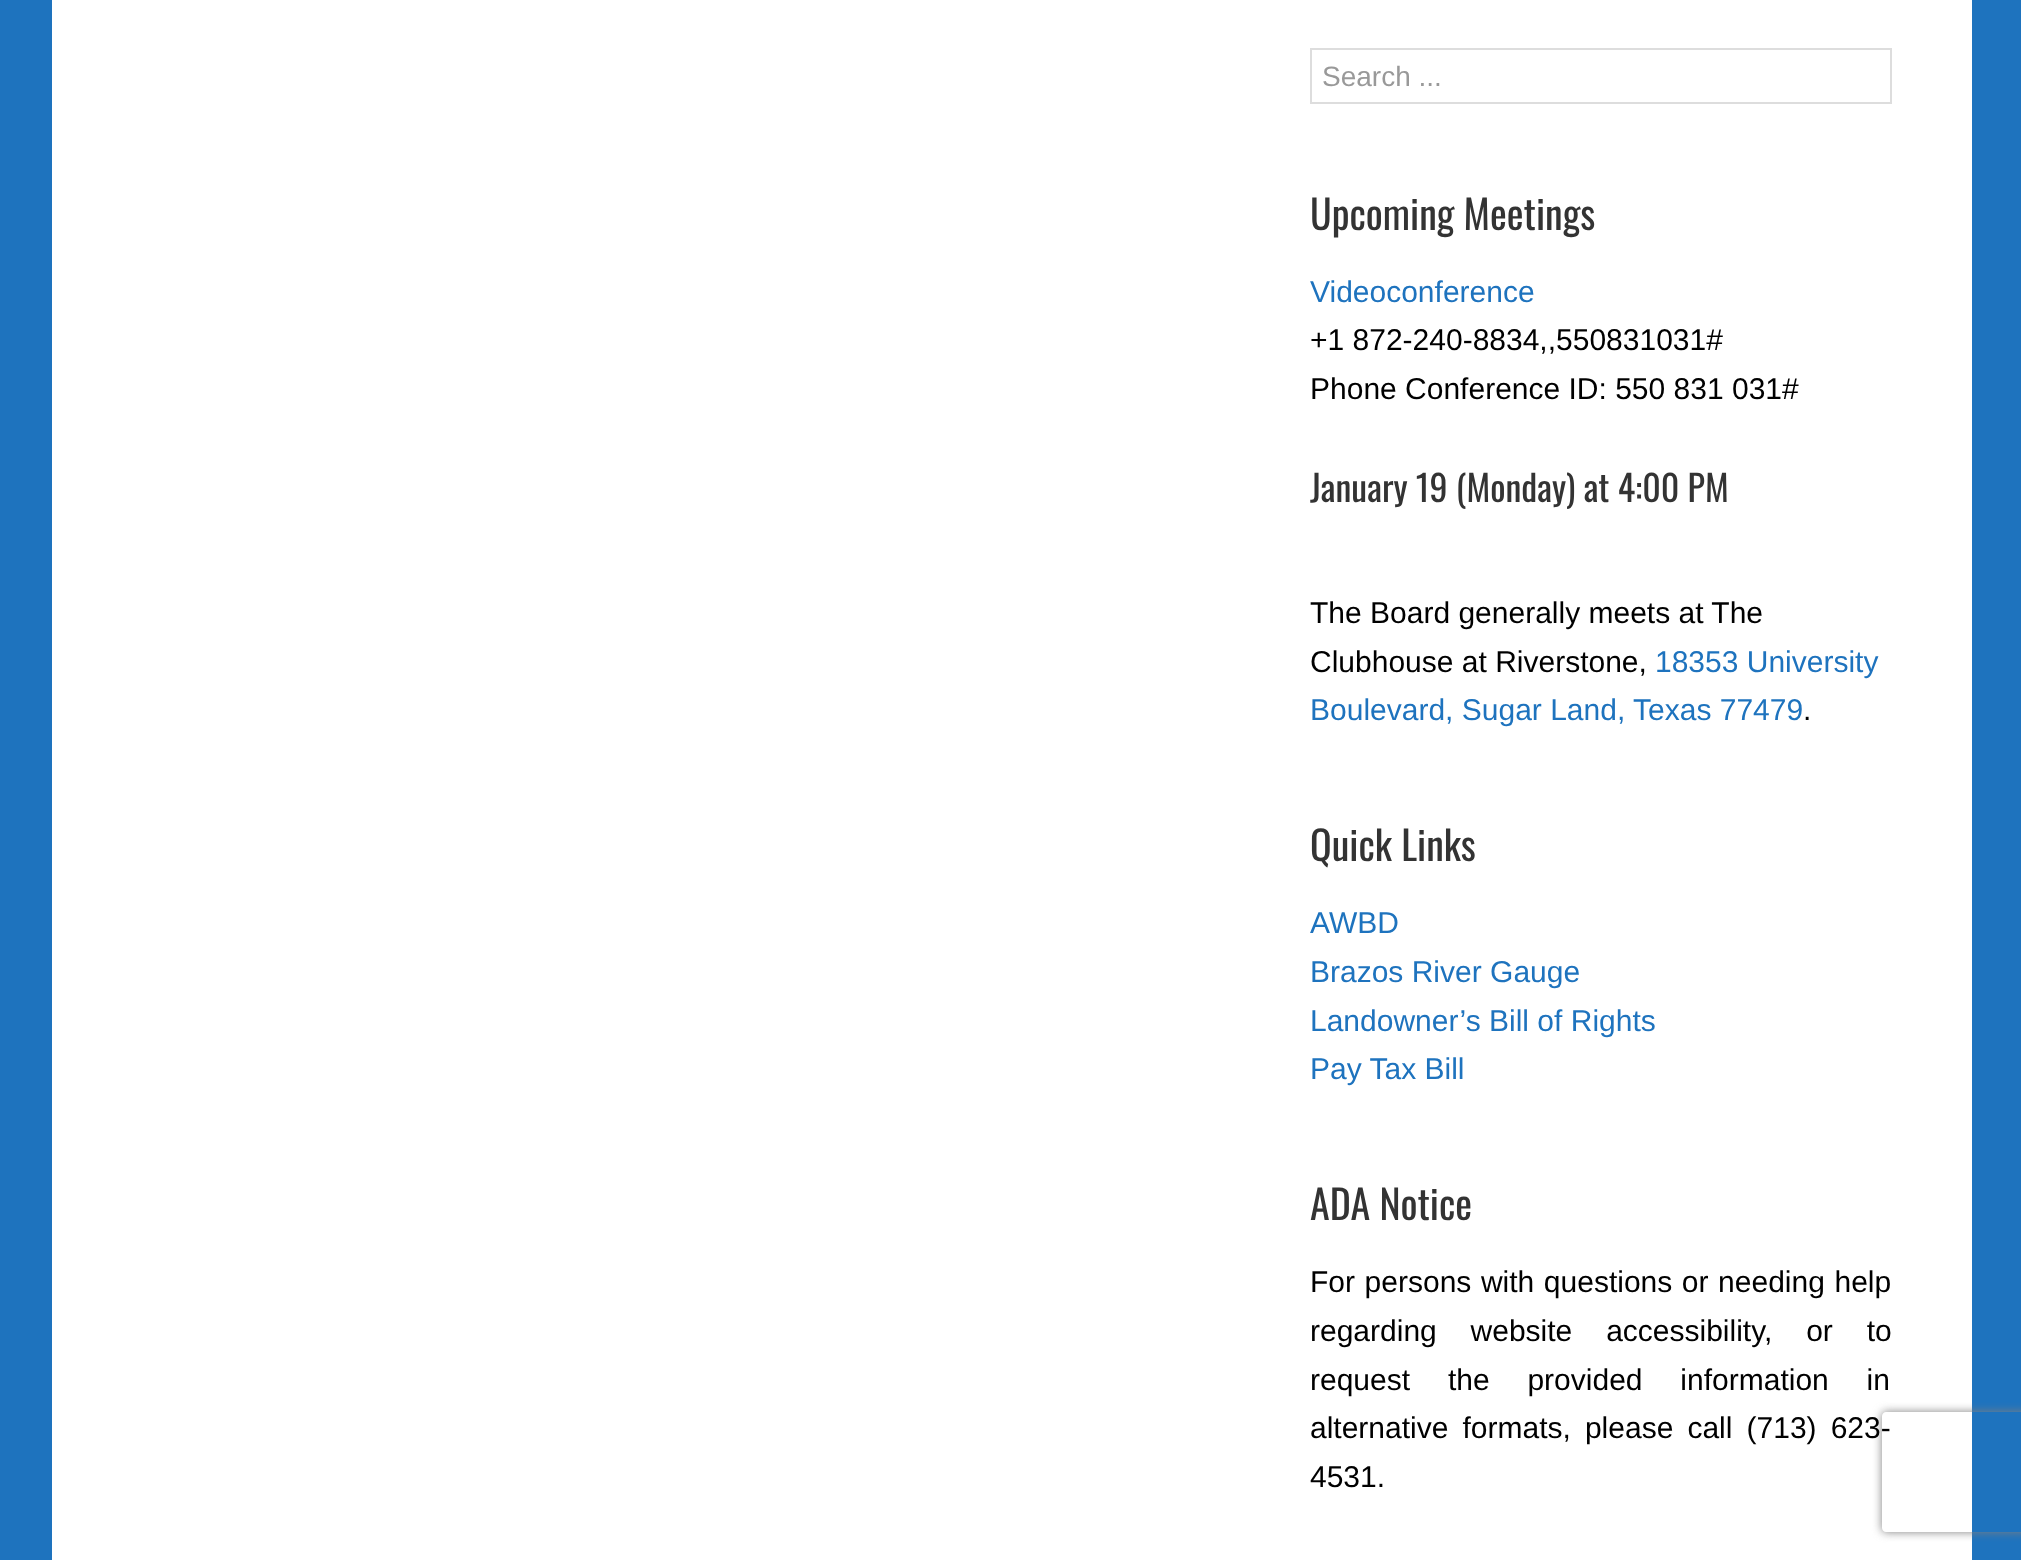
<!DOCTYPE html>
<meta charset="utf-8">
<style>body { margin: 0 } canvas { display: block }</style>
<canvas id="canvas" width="2021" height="1560"></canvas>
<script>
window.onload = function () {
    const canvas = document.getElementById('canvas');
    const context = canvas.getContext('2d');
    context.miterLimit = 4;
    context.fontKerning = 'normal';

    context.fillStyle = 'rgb(30, 115, 190)';
    context.fillRect(0, 0, 2021, 1560);
    context.fillStyle = 'rgb(255, 255, 255)';
    context.fillRect(52, 0, 1920, 1560);
    context.strokeStyle = 'rgb(221, 221, 221)';
    context.lineWidth = 2;
    context.strokeRect(1311, 49, 580, 54);
    context.save();
    context.beginPath();
    context.moveTo(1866, 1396);
    context.lineTo(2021, 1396);
    context.lineTo(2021, 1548);
    context.lineTo(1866, 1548);
    context.closePath();
    context.moveTo(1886, 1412);
    context.lineTo(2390, 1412);
    context.bezierCurveTo(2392, 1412, 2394, 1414, 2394, 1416);
    context.lineTo(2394, 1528);
    context.bezierCurveTo(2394, 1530, 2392, 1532, 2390, 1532);
    context.lineTo(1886, 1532);
    context.bezierCurveTo(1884, 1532, 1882, 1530, 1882, 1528);
    context.lineTo(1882, 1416);
    context.bezierCurveTo(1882, 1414, 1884, 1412, 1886, 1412);
    context.closePath();
    context.clip('evenodd');
    context.fillStyle = 'rgb(128, 128, 128)';
    context.filter = 'blur(5px)';
    context.beginPath();
    context.roundRect(1882, 1412, 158, 120, 4);
    context.fill();
    context.filter = 'none';
    context.restore();
    context.font = '28px Liberation Sans';
    context.fillStyle = 'rgb(153, 153, 153)';
    context.fillText('Search ...', 1322, 86);
    context.font = '40px Oswald';
    context.fillStyle = 'rgb(51, 51, 51)';
    context.fillText('Upcoming Meetings', 1310, 230);
    context.font = '30px Liberation Sans';
    context.fillStyle = 'rgb(30, 115, 190)';
    context.fillText('Videoconference', 1310, 302);
    context.fillStyle = 'rgb(0, 0, 0)';
    context.fillText('+1 872-240-8834,,550831031#', 1310, 350);
    context.fillText('Phone Conference ID: 550 831 031#', 1310, 399);
    context.font = '36px Oswald';
    context.fillStyle = 'rgb(51, 51, 51)';
    context.fillText('January 19 (Monday) at 4:00 PM', 1310, 502);
    context.font = '30px Liberation Sans';
    context.fillStyle = 'rgb(0, 0, 0)';
    context.fillText('The Board generally meets at The', 1310, 623);
    context.fillText('Clubhouse at Riverstone,', 1310, 672);
    context.fillStyle = 'rgb(30, 115, 190)';
    context.fillText('18353 University', 1655, 672);
    context.fillText('Boulevard, Sugar Land, Texas 77479', 1310, 720);
    context.fillStyle = 'rgb(0, 0, 0)';
    context.fillText('.', 1803, 720);
    context.font = '40px Oswald';
    context.fillStyle = 'rgb(51, 51, 51)';
    context.fillText('Quick Links', 1310, 861);
    context.font = '30px Liberation Sans';
    context.fillStyle = 'rgb(30, 115, 190)';
    context.fillText('AWBD', 1310, 933);
    context.fillText('Brazos River Gauge', 1310, 982);
    context.fillText('Landowner’s Bill of Rights', 1310, 1031);
    context.fillText('Pay Tax Bill', 1310, 1079);
    context.font = '40px Oswald';
    context.fillStyle = 'rgb(51, 51, 51)';
    context.fillText('ADA Notice', 1310, 1220);
    context.wordSpacing = '1.25px';
    context.font = '30px Liberation Sans';
    context.fillStyle = 'rgb(0, 0, 0)';
    context.fillText('For persons with questions or needing help', 1310, 1292);
    context.wordSpacing = '25.5px';
    context.fillText('regarding website accessibility, or to', 1310, 1341);
    context.wordSpacing = '29.5px';
    context.fillText('request the provided information in', 1310, 1390);
    context.wordSpacing = '5.75px';
    context.fillText('alternative formats, please call (713) 623-', 1310, 1438);
    context.wordSpacing = '0px';
    context.fillText('4531.', 1310, 1487);
};
</script>
